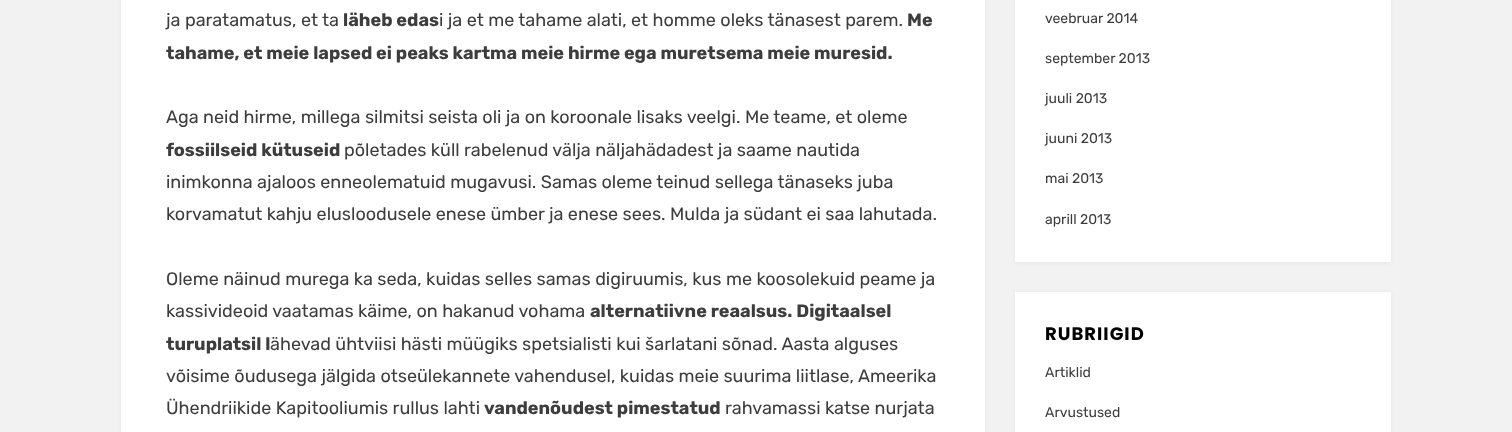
<!DOCTYPE html>
<meta charset="utf-8">
<style>body { margin: 0 } canvas { display: block }</style>
<canvas id="canvas" width="1512" height="432"></canvas>
<script>
window.onload = function () {
    const canvas = document.getElementById('canvas');
    const context = canvas.getContext('2d');
    context.miterLimit = 4;
    context.fontKerning = 'normal';

    context.fillStyle = 'rgb(242, 242, 242)';
    context.fillRect(0, 0, 1512, 432);
    context.fillStyle = 'rgba(0, 0, 1, 0.05)';
    context.filter = 'blur(2.5px)';
    context.beginPath();
    context.rect(121, -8, 864, 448);
    context.fill();
    context.filter = 'none';
    context.fillStyle = 'rgb(255, 255, 255)';
    context.fillRect(121, 0, 864, 432);
    context.fillStyle = 'rgba(0, 0, 1, 0.05)';
    context.filter = 'blur(2.5px)';
    context.beginPath();
    context.rect(1015, -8, 376, 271);
    context.fill();
    context.filter = 'none';
    context.fillStyle = 'rgb(255, 255, 255)';
    context.fillRect(1015, 0, 376, 262);
    context.fillStyle = 'rgba(0, 0, 1, 0.05)';
    context.filter = 'blur(2.5px)';
    context.beginPath();
    context.rect(1015, 293, 376, 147);
    context.fill();
    context.filter = 'none';
    context.fillStyle = 'rgb(255, 255, 255)';
    context.fillRect(1015, 292, 376, 140);
    context.font = '18px Rubik';
    context.fillStyle = 'rgb(61, 61, 61)';
    context.fillText('ja paratamatus, et ta', 166, 26);
    context.font = 'bold 18px Rubik';
    context.fillText('läheb edas', 343, 26);
    context.font = '18px Rubik';
    context.fillText('i ja et me tahame alati, et homme oleks tänasest parem.', 439, 26);
    context.font = 'bold 18px Rubik';
    context.fillText('Me', 907, 26);
    context.fillText('tahame, et meie lapsed ei peaks kartma meie hirme ega muretsema meie muresid.', 166, 59);
    context.font = '18px Rubik';
    context.fillText('Aga neid hirme, millega silmitsi seista oli ja on koroonale lisaks veelgi. Me teame, et oleme', 166, 123);
    context.font = 'bold 18px Rubik';
    context.fillText('fossiilseid kütuseid', 166, 156);
    context.font = '18px Rubik';
    context.fillText('põletades küll rabelenud välja näljahädadest ja saame nautida', 344, 156);
    context.fillText('inimkonna ajaloos enneolematuid mugavusi. Samas oleme teinud sellega tänaseks juba', 166, 188);
    context.fillText('korvamatut kahju elusloodusele enese ümber ja enese sees. Mulda ja südant ei saa lahutada.', 166, 220);
    context.fillText('Oleme näinud murega ka seda, kuidas selles samas digiruumis, kus me koosolekuid peame ja', 166, 285);
    context.fillText('kassivideoid vaatamas käime, on hakanud vohama', 166, 317);
    context.font = 'bold 18px Rubik';
    context.fillText('alternatiivne reaalsus. Digitaalsel', 590, 317);
    context.fillText('turuplatsil l', 166, 350);
    context.font = '18px Rubik';
    context.fillText('ähevad ühtviisi hästi müügiks spetsialisti kui šarlatani sõnad. Aasta alguses', 270, 350);
    context.fillText('võisime õudusega jälgida otseülekannete vahendusel, kuidas meie suurima liitlase, Ameerika', 166, 382);
    context.fillText('Ühendriikide Kapitooliumis rullus lahti', 166, 414);
    context.font = 'bold 18px Rubik';
    context.fillText('vandenõudest pimestatud', 484, 414);
    context.font = '18px Rubik';
    context.fillText('rahvamassi katse nurjata', 725, 414);
    context.font = '14px Rubik';
    context.fillText('veebruar 2014', 1045, 23);
    context.fillText('september 2013', 1045, 63);
    context.fillText('juuli 2013', 1045, 103);
    context.fillText('juuni 2013', 1045, 143);
    context.fillText('mai 2013', 1045, 183);
    context.fillText('aprill 2013', 1045, 224);
    context.letterSpacing = '1px';
    context.font = 'bold 18px Poppins';
    context.fillStyle = 'rgb(2, 2, 2)';
    context.fillText('RUBRIIGID', 1045, 340);
    context.letterSpacing = '0px';
    context.font = '14px Rubik';
    context.fillStyle = 'rgb(61, 61, 61)';
    context.fillText('Artiklid', 1045, 377);
    context.fillText('Arvustused', 1045, 417);
};
</script>
